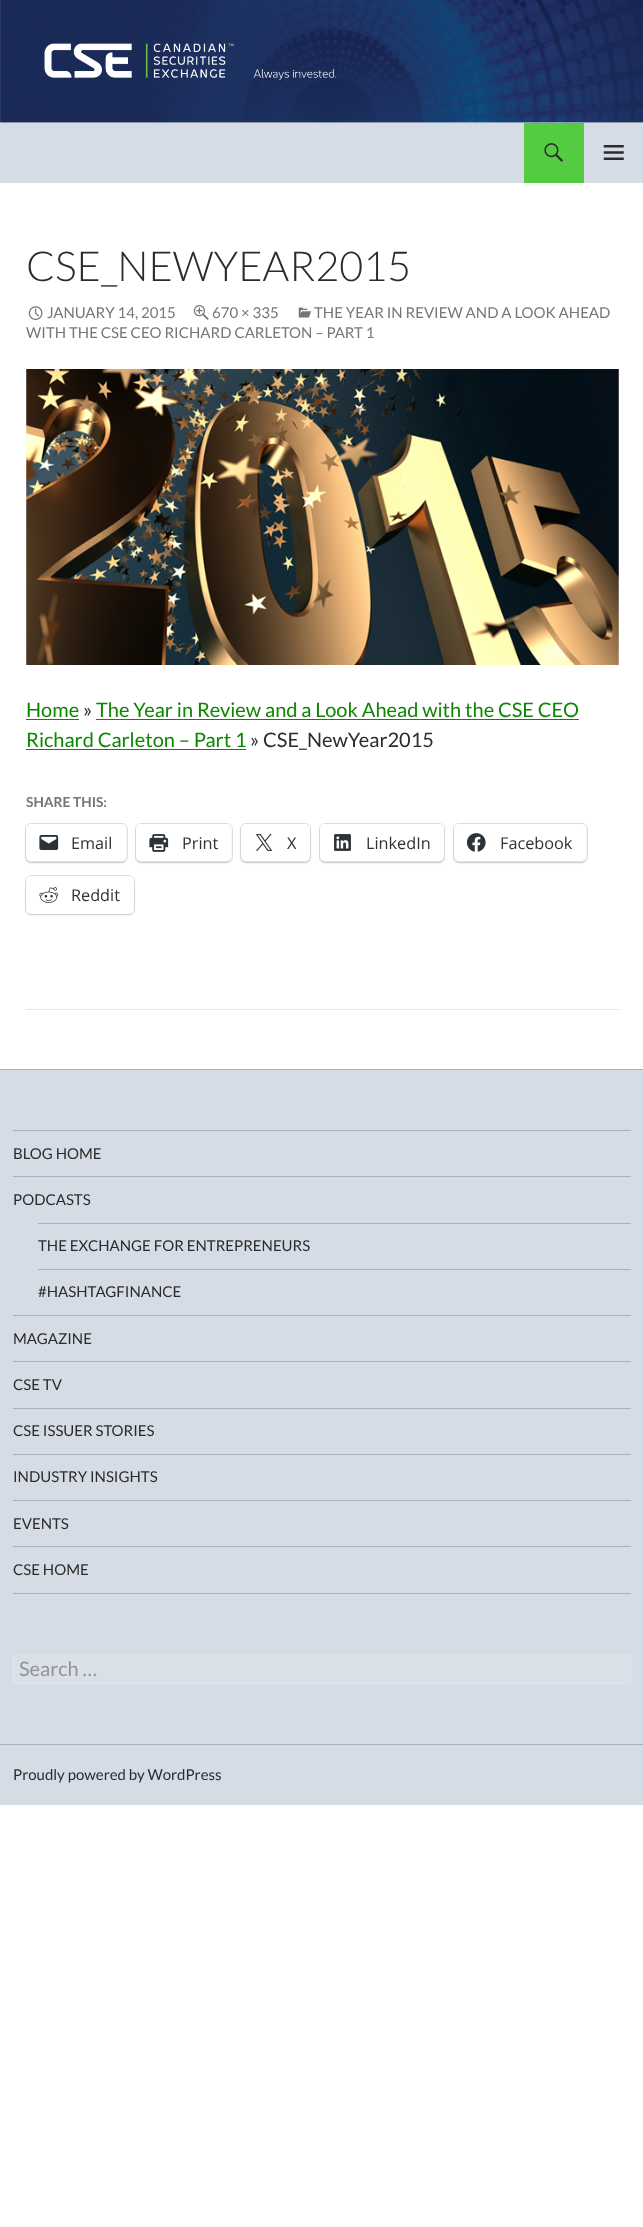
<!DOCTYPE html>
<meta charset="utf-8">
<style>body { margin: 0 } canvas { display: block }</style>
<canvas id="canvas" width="643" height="2227"></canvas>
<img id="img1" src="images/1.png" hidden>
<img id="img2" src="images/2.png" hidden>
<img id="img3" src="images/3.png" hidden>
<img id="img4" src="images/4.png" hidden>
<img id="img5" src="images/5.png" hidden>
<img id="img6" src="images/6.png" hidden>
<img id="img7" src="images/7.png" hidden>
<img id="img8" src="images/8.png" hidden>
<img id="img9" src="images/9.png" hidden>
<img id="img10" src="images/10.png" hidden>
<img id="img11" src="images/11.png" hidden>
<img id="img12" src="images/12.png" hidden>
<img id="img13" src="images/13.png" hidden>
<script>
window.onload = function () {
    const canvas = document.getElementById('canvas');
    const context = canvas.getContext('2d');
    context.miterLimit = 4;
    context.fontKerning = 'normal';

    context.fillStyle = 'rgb(255, 255, 255)';
    context.fillRect(0, 0, 643, 2227);
    context.drawImage(document.getElementById('img1'), 0, 0, 643, 123);
    context.fillStyle = 'rgb(214, 220, 229)';
    context.fillRect(0, 123, 643, 60);
    context.fillStyle = 'rgb(83, 204, 66)';
    context.fillRect(524, 123, 60, 60);
    context.drawImage(document.getElementById('img2'), 544, 143, 19, 19);
    context.drawImage(document.getElementById('img3'), 603, 145, 21, 15);
    context.drawImage(document.getElementById('img4'), 298, 307, 14, 11);
    context.drawImage(document.getElementById('img5'), 28, 306, 15, 14);
    context.drawImage(document.getElementById('img6'), 193, 305, 16, 15);
    context.drawImage(document.getElementById('img7'), 26, 369, 593, 296);
    context.fillStyle = 'rgb(13, 134, 0)';
    context.fillRect(26, 719, 53, 1);
    context.fillRect(96, 719, 483, 1);
    context.fillRect(26, 749, 220, 1);
    context.beginPath();
    context.roundRect(25.5, 823.5, 102, 39, 5.5);
    context.strokeStyle = 'rgb(224, 224, 224)';
    context.stroke();
    context.fillStyle = 'rgba(0, 0, 0, 0.12)';
    context.filter = 'blur(1px)';
    context.beginPath();
    context.roundRect(26, 825, 100, 38, 5);
    context.fill();
    context.filter = 'none';
    context.fillStyle = 'rgb(255, 255, 255)';
    context.beginPath();
    context.roundRect(26, 824, 100, 37, 5);
    context.fill();
    context.drawImage(document.getElementById('img8'), 39, 835, 20, 15);
    context.beginPath();
    context.roundRect(135.5, 823.5, 97, 39, 5.5);
    context.stroke();
    context.fillStyle = 'rgba(0, 0, 0, 0.12)';
    context.filter = 'blur(1px)';
    context.beginPath();
    context.roundRect(136, 825, 95, 38, 5);
    context.fill();
    context.filter = 'none';
    context.fillStyle = 'rgb(255, 255, 255)';
    context.beginPath();
    context.roundRect(136, 824, 95, 37, 5);
    context.fill();
    context.drawImage(document.getElementById('img9'), 149, 834, 20, 18);
    context.beginPath();
    context.roundRect(240.5, 823.5, 70, 39, 5.5);
    context.stroke();
    context.fillStyle = 'rgba(0, 0, 0, 0.12)';
    context.filter = 'blur(1px)';
    context.beginPath();
    context.roundRect(241, 825, 69, 38, 5);
    context.fill();
    context.filter = 'none';
    context.fillStyle = 'rgb(255, 255, 255)';
    context.beginPath();
    context.roundRect(241, 824, 69, 37, 5);
    context.fill();
    context.drawImage(document.getElementById('img10'), 255, 834, 18, 17);
    context.beginPath();
    context.roundRect(319.5, 823.5, 125, 39, 5.5);
    context.stroke();
    context.fillStyle = 'rgba(0, 0, 0, 0.12)';
    context.filter = 'blur(1px)';
    context.beginPath();
    context.roundRect(320, 825, 124, 38, 5);
    context.fill();
    context.filter = 'none';
    context.fillStyle = 'rgb(255, 255, 255)';
    context.beginPath();
    context.roundRect(320, 824, 124, 37, 5);
    context.fill();
    context.drawImage(document.getElementById('img11'), 334, 834, 17, 17);
    context.beginPath();
    context.roundRect(453.5, 823.5, 134, 39, 5.5);
    context.stroke();
    context.fillStyle = 'rgba(0, 0, 0, 0.12)';
    context.filter = 'blur(1px)';
    context.beginPath();
    context.roundRect(454, 825, 132, 38, 5);
    context.fill();
    context.filter = 'none';
    context.fillStyle = 'rgb(255, 255, 255)';
    context.beginPath();
    context.roundRect(454, 824, 132, 37, 5);
    context.fill();
    context.drawImage(document.getElementById('img12'), 466, 833, 20, 19);
    context.beginPath();
    context.roundRect(25.5, 875.5, 109, 39, 5.5);
    context.stroke();
    context.fillStyle = 'rgba(0, 0, 0, 0.12)';
    context.filter = 'blur(1px)';
    context.beginPath();
    context.roundRect(26, 878, 108, 37, 5);
    context.fill();
    context.filter = 'none';
    context.fillStyle = 'rgb(255, 255, 255)';
    context.beginPath();
    context.roundRect(26, 876, 108, 38, 5);
    context.fill();
    context.drawImage(document.getElementById('img13'), 39, 887, 20, 16);
    context.fillStyle = 'rgb(230, 230, 230)';
    context.fillRect(26, 1009, 593, 1);
    context.fillStyle = 'rgb(214, 220, 229)';
    context.fillRect(0, 1070, 643, 674);
    context.fillStyle = 'rgb(171, 176, 183)';
    context.fillRect(0, 1069, 643, 1);
    context.fillRect(0, 1744, 643, 1);
    context.fillRect(13, 1593, 618, 1);
    context.fillRect(13, 1130, 618, 1);
    context.fillRect(13, 1176, 618, 1);
    context.fillRect(38, 1223, 593, 1);
    context.fillRect(38, 1269, 593, 1);
    context.fillRect(13, 1315, 618, 1);
    context.fillRect(13, 1361, 618, 1);
    context.fillRect(13, 1408, 618, 1);
    context.fillRect(13, 1454, 618, 1);
    context.fillRect(13, 1500, 618, 1);
    context.fillRect(13, 1546, 618, 1);
    context.fillStyle = 'rgb(218, 224, 232)';
    context.beginPath();
    context.roundRect(13.5, 1654.5, 617, 29, 2);
    context.fill();
    context.strokeStyle = 'rgb(225, 230, 237)';
    context.stroke();
    context.fillStyle = 'rgb(214, 220, 229)';
    context.fillRect(0, 1745, 643, 60);
    context.font = '300 41.25px Lato';
    context.fillStyle = 'rgb(43, 43, 43)';
    context.fillText('CSE_NEWYEAR2015', 26, 281);
    context.font = '15px Lato';
    context.fillStyle = 'rgb(118, 118, 118)';
    context.fillText('THE YEAR IN REVIEW AND A LOOK AHEAD', 314, 318);
    context.fillText('WITH THE CSE CEO RICHARD CARLETON – PART 1', 26, 338);
    context.fillText('JANUARY 14, 2015', 47, 318);
    context.fillText('670 × 335', 212, 318);
    context.font = '20px Lato';
    context.fillStyle = 'rgb(13, 134, 0)';
    context.fillText('Home', 26, 717);
    context.fillStyle = 'rgb(43, 43, 43)';
    context.fillText('»', 83, 717);
    context.fillStyle = 'rgb(13, 134, 0)';
    context.fillText('The Year in Review and a Look Ahead with the CSE CEO', 96, 717);
    context.fillText('Richard Carleton – Part 1', 26, 747);
    context.fillStyle = 'rgb(43, 43, 43)';
    context.fillText('» CSE_NewYear2015', 250, 747);
    context.font = 'bold 13.75px Lato';
    context.fillStyle = 'rgb(118, 118, 118)';
    context.fillText('SHARE THIS:', 26, 807);
    context.font = '16.25px Open Sans';
    context.fillStyle = 'rgb(44, 51, 56)';
    context.fillText('Email', 71, 849);
    context.fillText('Print', 182, 849);
    context.fillText('X', 287, 849);
    context.fillText('LinkedIn', 366, 849);
    context.fillText('Facebook', 500, 849);
    context.fillText('Reddit', 71, 901);
    context.font = '15px Lato';
    context.fillStyle = 'rgb(43, 43, 43)';
    context.fillText('BLOG HOME', 13, 1159);
    context.fillText('PODCASTS', 13, 1205);
    context.fillText('THE EXCHANGE FOR ENTREPRENEURS', 38, 1251);
    context.fillText('#HASHTAGFINANCE', 38, 1297);
    context.fillText('MAGAZINE', 13, 1344);
    context.fillText('CSE TV', 13, 1390);
    context.fillText('CSE ISSUER STORIES', 13, 1436);
    context.fillText('INDUSTRY INSIGHTS', 13, 1482);
    context.fillText('EVENTS', 13, 1529);
    context.fillText('CSE HOME', 13, 1575);
    context.font = '20px Lato';
    context.fillStyle = 'rgb(147, 147, 147)';
    context.fillText('Search …', 19, 1676);
    context.font = '15px Lato';
    context.fillStyle = 'rgb(43, 43, 43)';
    context.fillText('Proudly powered by WordPress', 13, 1780);
};
</script>
